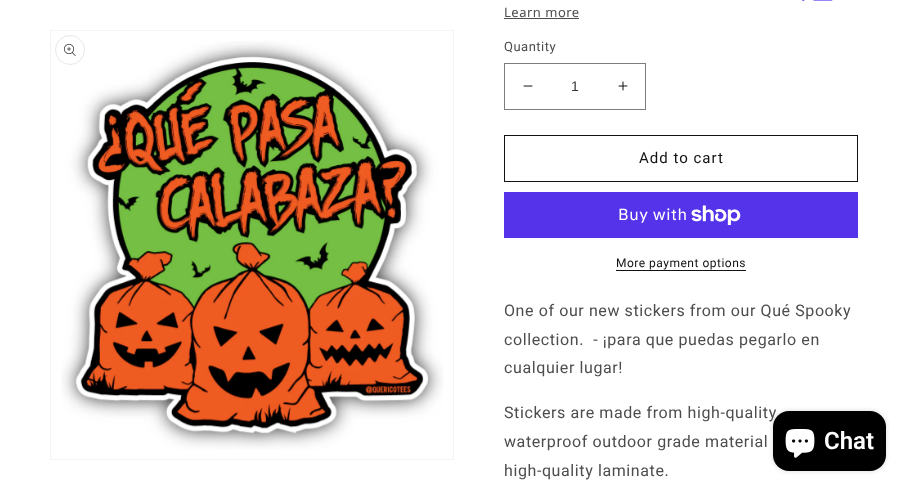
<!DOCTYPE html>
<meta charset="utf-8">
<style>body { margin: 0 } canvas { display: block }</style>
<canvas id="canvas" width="908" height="492"></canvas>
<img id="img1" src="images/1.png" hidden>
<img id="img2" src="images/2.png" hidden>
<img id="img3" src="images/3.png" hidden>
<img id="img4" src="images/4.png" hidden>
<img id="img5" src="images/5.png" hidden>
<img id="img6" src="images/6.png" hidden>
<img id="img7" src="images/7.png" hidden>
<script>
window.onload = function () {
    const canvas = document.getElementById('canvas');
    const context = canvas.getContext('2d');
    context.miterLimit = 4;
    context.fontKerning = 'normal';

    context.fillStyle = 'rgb(255, 255, 255)';
    context.fillRect(0, 0, 908, 492);
    context.strokeStyle = 'rgb(243, 243, 243)';
    context.strokeRect(50.5, 30.5, 403, 429);
    context.drawImage(document.getElementById('img1'), 61, 41, 383, 409);
    context.beginPath();
    context.arc(70, 50, 14.5, 0, 2 * Math.PI);
    context.strokeStyle = 'rgb(231, 231, 231)';
    context.stroke();
    context.drawImage(document.getElementById('img2'), 64, 44, 12, 12);
    context.drawImage(document.getElementById('img3'), 802, 0, 31, 1);
    context.fillStyle = 'rgb(77, 77, 77)';
    context.fillRect(504, 18, 75, 1);
    context.drawImage(document.getElementById('img4'), 523, 85, 10, 2);
    context.drawImage(document.getElementById('img5'), 618, 81, 10, 10);
    context.strokeStyle = 'rgb(125, 125, 125)';
    context.strokeRect(504.5, 63.5, 141, 46);
    context.strokeStyle = 'rgb(18, 18, 18)';
    context.strokeRect(504.5, 135.5, 353, 46);
    context.fillStyle = 'rgb(84, 51, 235)';
    context.fillRect(504, 192, 354, 46);
    context.drawImage(document.getElementById('img6'), 691, 205, 50, 20);
    context.fillStyle = 'rgb(18, 18, 18)';
    context.fillRect(616, 270, 130, 1);
    context.fillStyle = 'rgba(0, 0, 0, 0.15)';
    context.filter = 'blur(2.5px)';
    context.beginPath();
    context.roundRect(773, 411, 113, 60, 16);
    context.fill();
    context.filter = 'none';
    context.letterSpacing = '0.5px';
    context.font = '13px Noto Sans';
    context.fillStyle = 'rgb(77, 77, 77)';
    context.fillText('Learn more', 504, 17);
    context.font = '13px Roboto';
    context.fillText('Quantity', 504, 51);
    context.letterSpacing = '0px';
    context.font = '14px Liberation Sans';
    context.fillStyle = 'rgb(54, 54, 54)';
    context.fillText('1', 571, 91);
    context.letterSpacing = '1px';
    context.font = '15px Roboto';
    context.fillStyle = 'rgb(18, 18, 18)';
    context.fillText('Add to cart', 639, 163);
    context.letterSpacing = '0.6px';
    context.font = '16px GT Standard';
    context.fillStyle = 'rgb(255, 255, 255)';
    context.fillText('Buy with', 618, 220);
    context.letterSpacing = '0.5px';
    context.font = '12px Roboto';
    context.fillStyle = 'rgb(18, 18, 18)';
    context.fillText('More payment options', 616, 267);
    context.letterSpacing = '0.6px';
    context.font = '16px Roboto';
    context.fillStyle = 'rgb(77, 77, 77)';
    context.fillText('One of our new stickers from our Qué Spooky', 504, 316);
    context.fillText('collection.  - ¡para que puedas pegarlo en', 504, 345);
    context.fillText('cualquier lugar!', 504, 373);
    context.fillText('Stickers are made from high-quality', 504, 418);
    context.fillText('waterproof outdoor grade material', 504, 447);
    context.fillText('high-quality laminate.', 504, 476);
    context.fillStyle = 'rgb(0, 0, 0)';
    context.beginPath();
    context.roundRect(773, 411, 113, 60, 16);
    context.fill();
    context.drawImage(document.getElementById('img7'), 785, 429, 30, 29);
    context.letterSpacing = '0px';
    context.font = '600 24px Roboto';
    context.fillStyle = 'rgb(255, 255, 255)';
    context.fillText('Chat', 824, 449);
};
</script>
